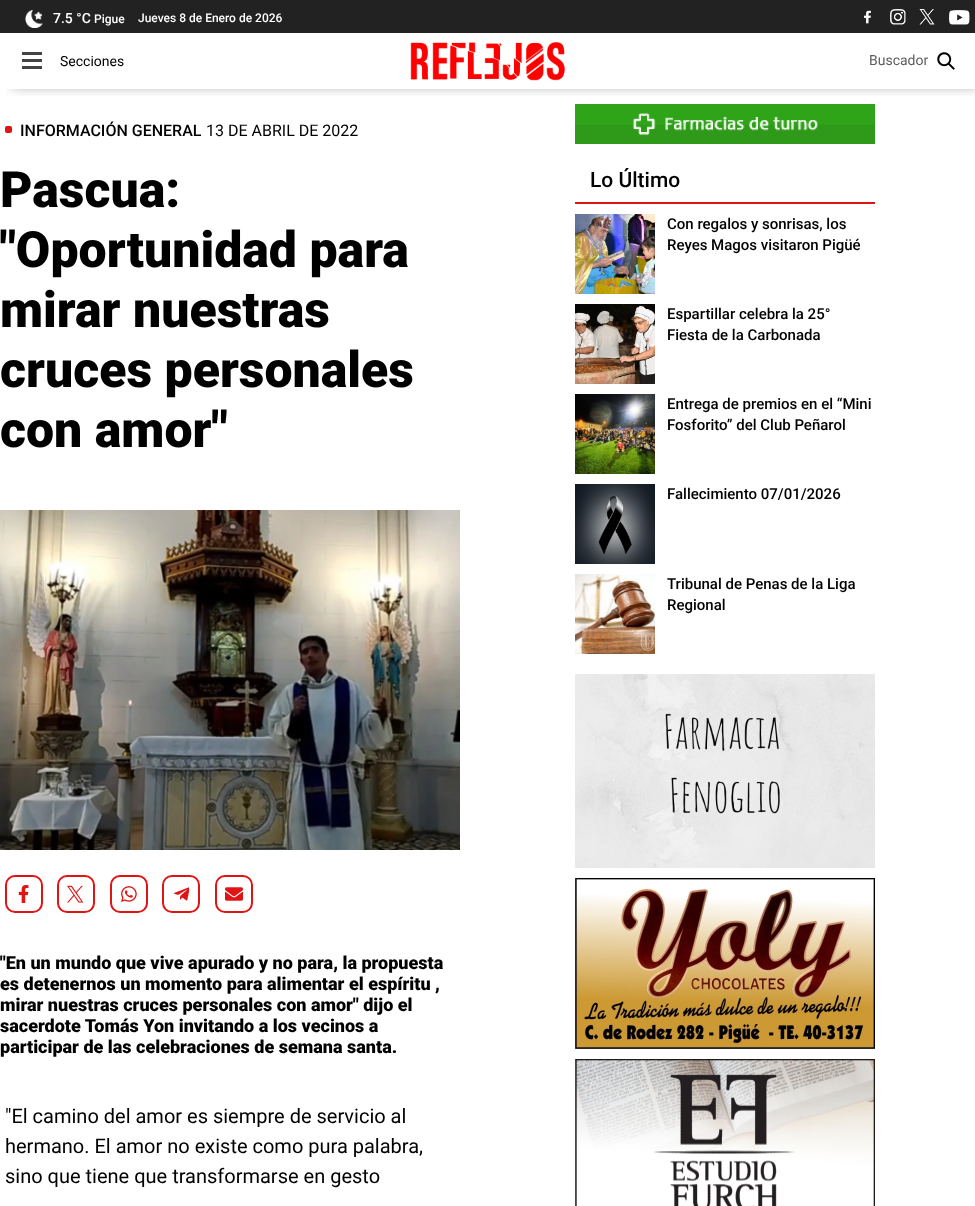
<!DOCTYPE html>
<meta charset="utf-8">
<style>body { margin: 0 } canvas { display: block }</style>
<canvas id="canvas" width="975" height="1206"></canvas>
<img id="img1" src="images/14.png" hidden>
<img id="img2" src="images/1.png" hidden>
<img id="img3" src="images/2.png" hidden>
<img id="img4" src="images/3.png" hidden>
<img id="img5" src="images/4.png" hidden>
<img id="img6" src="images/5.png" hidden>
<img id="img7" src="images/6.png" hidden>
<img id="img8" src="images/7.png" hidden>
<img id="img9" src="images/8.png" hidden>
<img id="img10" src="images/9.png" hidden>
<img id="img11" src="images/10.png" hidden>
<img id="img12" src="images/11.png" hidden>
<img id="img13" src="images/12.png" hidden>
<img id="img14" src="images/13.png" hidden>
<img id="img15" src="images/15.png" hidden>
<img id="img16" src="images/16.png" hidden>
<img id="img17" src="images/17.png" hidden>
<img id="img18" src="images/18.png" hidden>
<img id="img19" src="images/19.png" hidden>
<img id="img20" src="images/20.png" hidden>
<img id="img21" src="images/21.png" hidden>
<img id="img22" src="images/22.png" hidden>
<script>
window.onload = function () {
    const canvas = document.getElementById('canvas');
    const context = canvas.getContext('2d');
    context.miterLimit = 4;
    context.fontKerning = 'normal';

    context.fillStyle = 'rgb(255, 255, 255)';
    context.fillRect(0, 0, 975, 1206);
    context.drawImage(document.getElementById('img1'), 575, 104, 300, 40);
    context.save();
    context.beginPath();
    context.rect(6, 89, 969, 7);
    context.clip();
    context.fillStyle = 'rgba(0, 0, 0, 0.5)';
    context.filter = 'blur(6.5px)';
    context.beginPath();
    context.rect(12, 4, 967, 81);
    context.fill();
    context.filter = 'none';
    context.restore();
    context.fillStyle = 'rgb(34, 34, 34)';
    context.fillRect(0, 0, 975, 33);
    context.drawImage(document.getElementById('img2'), 25, 10, 18, 18);
    context.drawImage(document.getElementById('img3'), 864, 10, 7, 14);
    context.drawImage(document.getElementById('img4'), 890, 9, 16, 16);
    context.drawImage(document.getElementById('img5'), 919, 9, 16, 16);
    context.drawImage(document.getElementById('img6'), 949, 10, 21, 15);
    context.fillStyle = 'rgb(68, 68, 68)';
    context.fillRect(22, 52, 20, 3);
    context.fillRect(22, 59, 20, 3);
    context.fillRect(22, 66, 20, 3);
    context.drawImage(document.getElementById('img7'), 410, 41, 155, 40);
    context.drawImage(document.getElementById('img8'), 937, 52, 18, 18);
    context.fillStyle = 'rgb(225, 20, 20)';
    context.beginPath();
    context.roundRect(5, 126, 7, 7, 2);
    context.fill();
    context.drawImage(document.getElementById('img9'), 0, 510, 460, 340);
    context.beginPath();
    context.roundRect(6, 876, 36, 36, 9);
    context.strokeStyle = 'rgb(225, 20, 20)';
    context.lineWidth = 2;
    context.stroke();
    context.drawImage(document.getElementById('img10'), 18, 885, 11, 18);
    context.beginPath();
    context.roundRect(58, 876, 36, 36, 9);
    context.stroke();
    context.drawImage(document.getElementById('img11'), 67, 885, 17, 18);
    context.beginPath();
    context.roundRect(111, 876, 36, 36, 9);
    context.stroke();
    context.drawImage(document.getElementById('img12'), 121, 886, 16, 16);
    context.beginPath();
    context.roundRect(163, 876, 36, 36, 9);
    context.stroke();
    context.drawImage(document.getElementById('img13'), 174, 887, 15, 14);
    context.beginPath();
    context.roundRect(216, 876, 36, 36, 9);
    context.stroke();
    context.drawImage(document.getElementById('img14'), 225, 887, 18, 14);
    context.fillRect(575, 202, 300, 2);
    context.drawImage(document.getElementById('img15'), 575, 214, 80, 80);
    context.drawImage(document.getElementById('img16'), 575, 304, 80, 80);
    context.drawImage(document.getElementById('img17'), 575, 394, 80, 80);
    context.drawImage(document.getElementById('img18'), 575, 484, 80, 80);
    context.drawImage(document.getElementById('img19'), 575, 574, 80, 80);
    context.drawImage(document.getElementById('img20'), 575, 674, 300, 194);
    context.drawImage(document.getElementById('img21'), 575, 878, 300, 171);
    context.drawImage(document.getElementById('img22'), 575, 1059, 300, 147);
    context.font = '500 14px Roboto';
    context.fillStyle = 'rgb(255, 255, 255)';
    context.fillText('7.5 °C', 53, 23);
    context.font = '500 12px Roboto';
    context.fillText('Pigue', 94, 23);
    context.fillText('Jueves 8 de Enero de 2026', 138, 22);
    context.font = '14px Roboto';
    context.fillStyle = 'rgb(0, 0, 0)';
    context.fillText('Secciones', 60, 66);
    context.fillStyle = 'rgb(93, 93, 93)';
    context.fillText('Buscador', 869, 65);
    context.font = '500 16px Roboto';
    context.fillStyle = 'rgb(0, 0, 0)';
    context.fillText('INFORMACIÓN GENERAL', 20, 136);
    context.font = '16px Roboto';
    context.fillText('13 DE ABRIL DE 2022', 206, 136);
    context.font = '900 50px Roboto';
    context.fillText('Pascua:', 0, 207);
    context.fillText('"Oportunidad para', 0, 267);
    context.fillText('mirar nuestras', 0, 327);
    context.fillText('cruces personales', 0, 387);
    context.fillText('con amor"', 0, 447);
    context.font = '900 18px Roboto';
    context.fillText('"En un mundo que vive apurado y no para, la propuesta', 0, 969);
    context.fillText('es detenernos un momento para alimentar el espíritu ,', 0, 990);
    context.fillText('mirar nuestras cruces personales con amor" dijo el', 0, 1011);
    context.fillText('sacerdote Tomás Yon invitando a los vecinos a', 0, 1032);
    context.fillText('participar de las celebraciones de semana santa.', 0, 1053);
    context.font = '20px Roboto';
    context.fillText('"El camino del amor es siempre de servicio al', 5, 1123);
    context.fillText('hermano. El amor no existe como pura palabra,', 5, 1153);
    context.fillText('sino que tiene que transformarse en gesto', 5, 1183);
    context.font = '500 21px Roboto';
    context.fillText('Lo Último', 590, 187);
    context.font = '500 15px Roboto';
    context.fillText('Con regalos y sonrisas, los', 667, 229);
    context.fillText('Reyes Magos visitaron Pigüé', 667, 250);
    context.fillText('Espartillar celebra la 25°', 667, 319);
    context.fillText('Fiesta de la Carbonada', 667, 340);
    context.fillText('Entrega de premios en el “Mini', 667, 409);
    context.fillText('Fosforito” del Club Peñarol', 667, 430);
    context.fillText('Fallecimiento 07/01/2026', 667, 499);
    context.fillText('Tribunal de Penas de la Liga', 667, 589);
    context.fillText('Regional', 667, 610);
};
</script>
